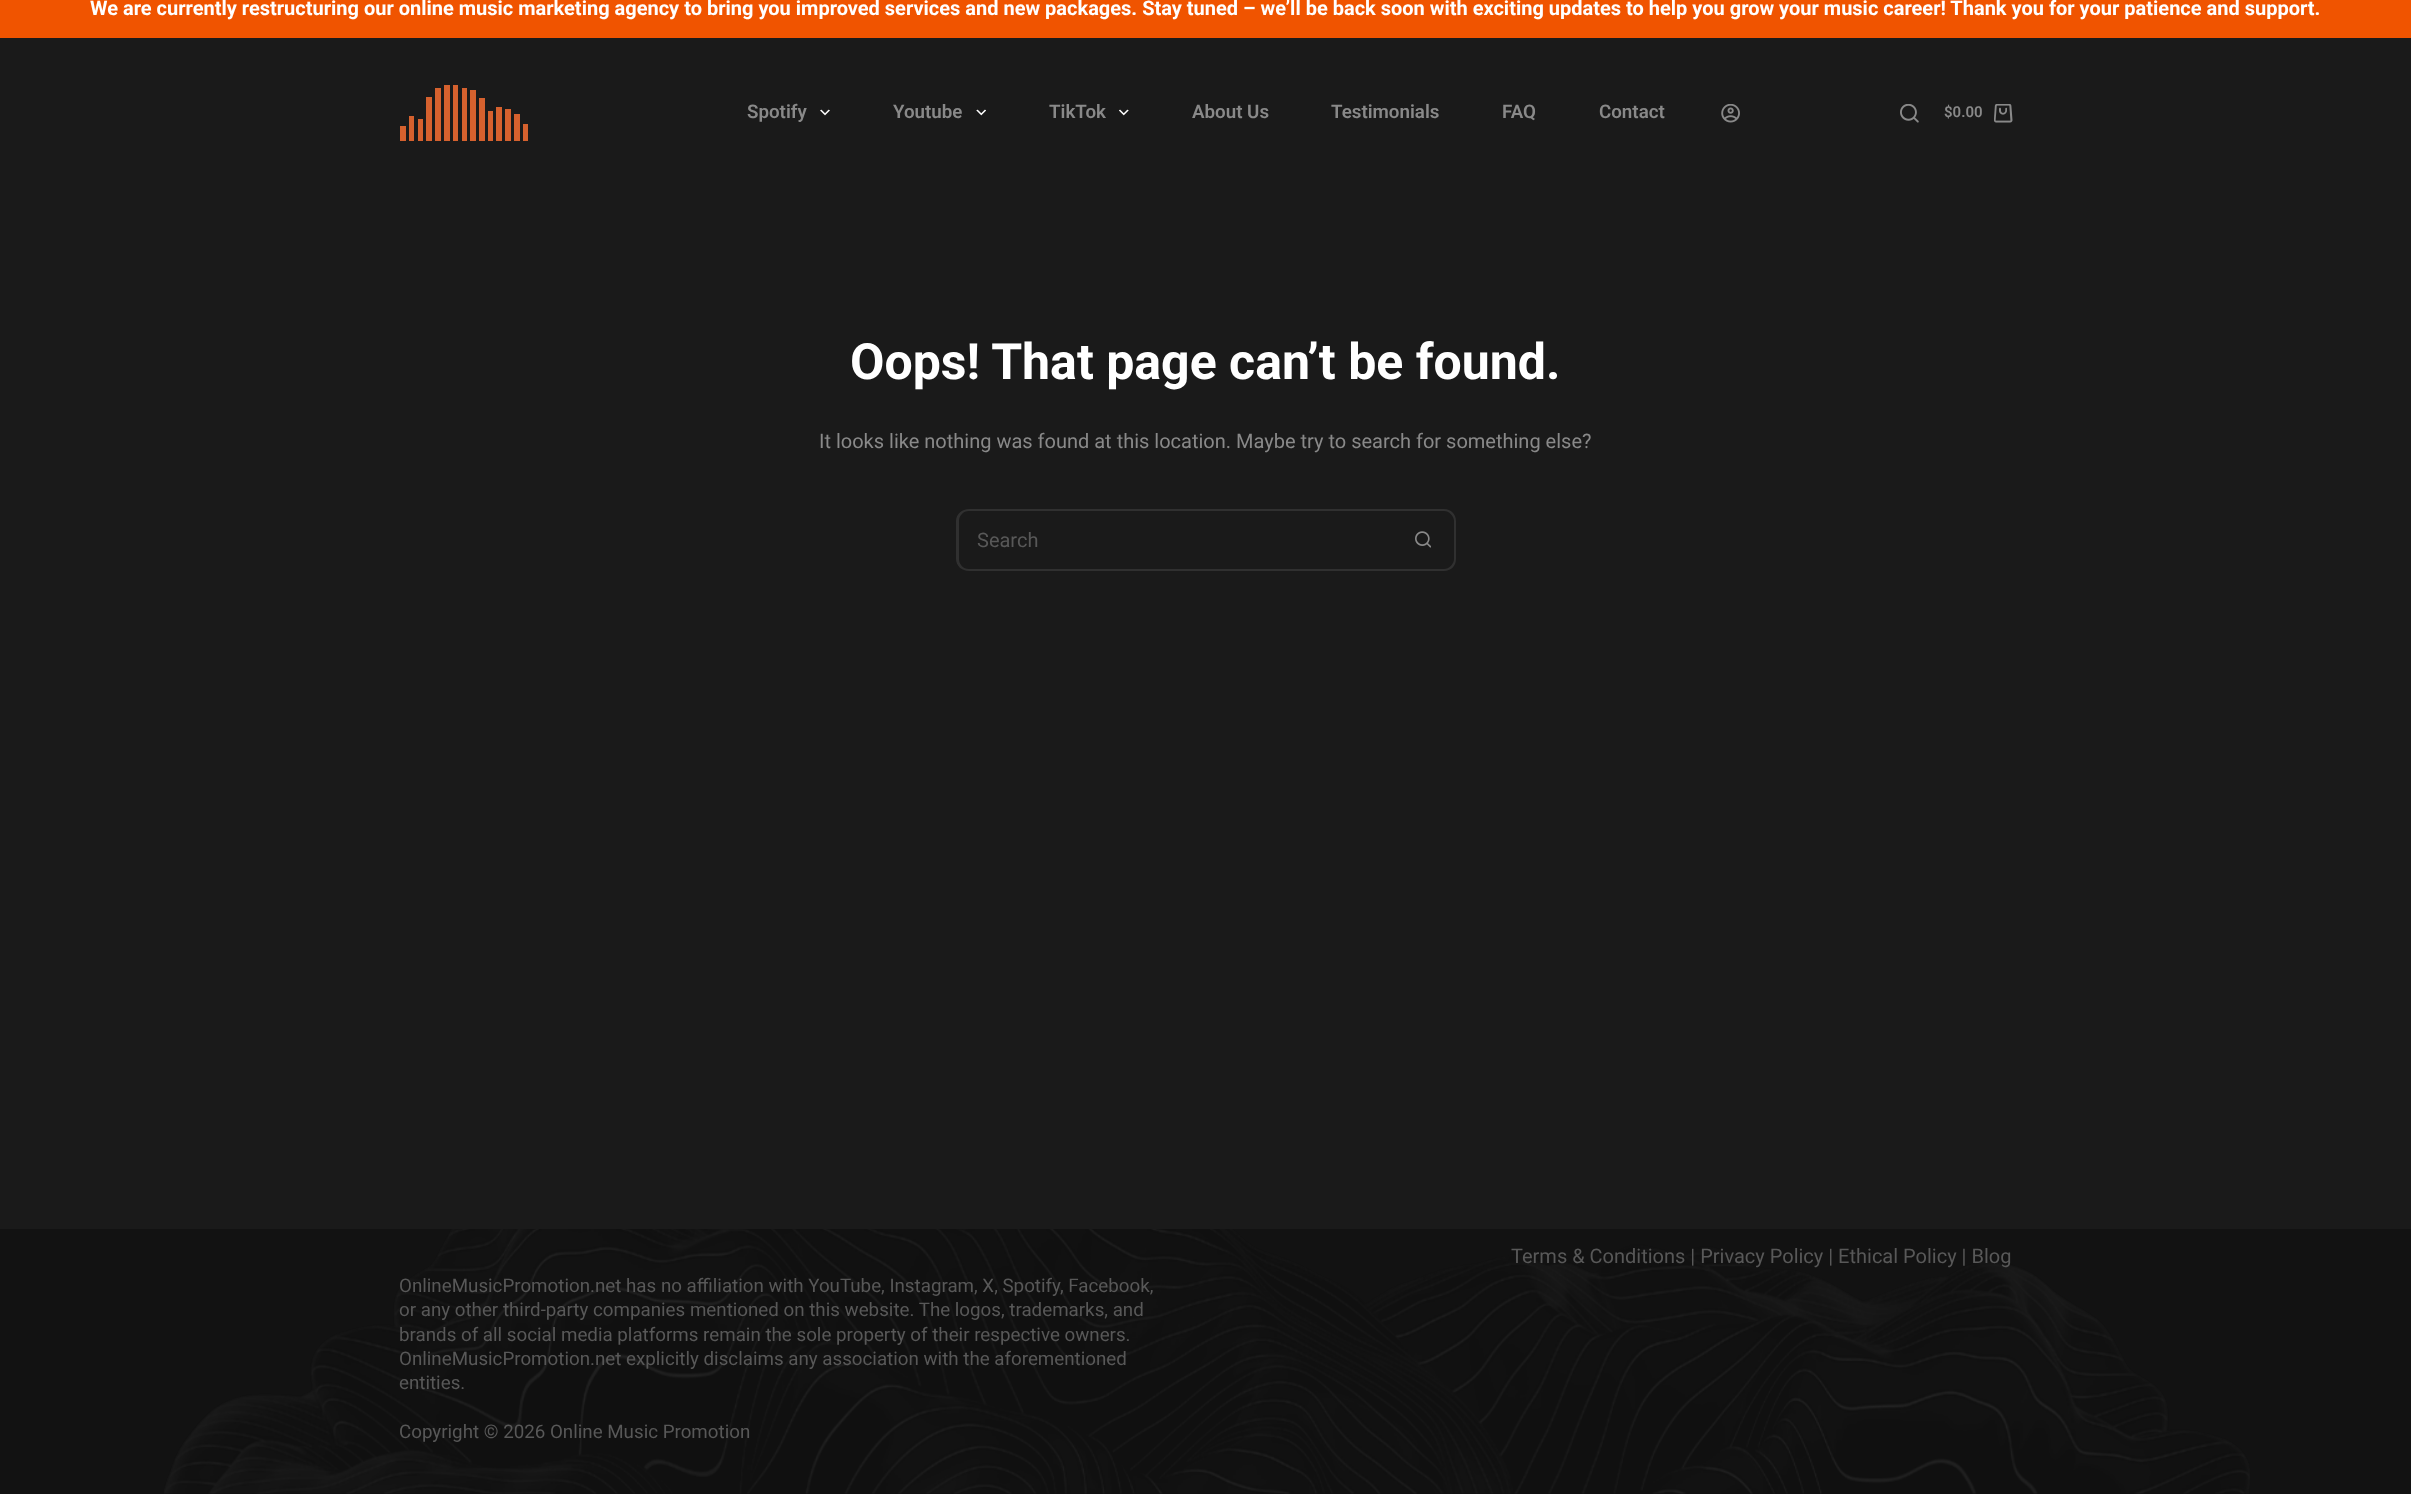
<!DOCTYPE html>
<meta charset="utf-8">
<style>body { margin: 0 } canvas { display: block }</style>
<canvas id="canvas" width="2411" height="1494"></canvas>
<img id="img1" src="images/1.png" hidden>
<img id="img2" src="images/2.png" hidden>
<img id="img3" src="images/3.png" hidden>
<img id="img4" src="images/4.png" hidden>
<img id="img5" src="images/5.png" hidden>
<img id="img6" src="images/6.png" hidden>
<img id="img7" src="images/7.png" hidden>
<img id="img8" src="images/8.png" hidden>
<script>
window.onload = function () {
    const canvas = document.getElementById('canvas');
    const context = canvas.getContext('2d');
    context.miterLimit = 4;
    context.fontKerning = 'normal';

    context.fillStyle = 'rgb(26, 26, 26)';
    context.fillRect(0, 0, 2411, 1494);
    context.fillStyle = 'rgb(240, 84, 0)';
    context.fillRect(0, 0, 2411, 38);
    context.fillStyle = 'rgb(213, 97, 46)';
    context.fillRect(400, 126, 6, 15);
    context.fillRect(409, 116, 5, 25);
    context.fillRect(418, 119, 5, 22);
    context.fillRect(426, 97, 6, 44);
    context.fillRect(435, 88, 6, 53);
    context.fillRect(444, 85, 6, 56);
    context.fillRect(453, 85, 5, 56);
    context.fillRect(462, 88, 5, 53);
    context.fillRect(470, 90, 6, 51);
    context.fillRect(479, 98, 6, 43);
    context.fillRect(488, 111, 5, 30);
    context.fillRect(496, 107, 6, 34);
    context.fillRect(505, 109, 6, 32);
    context.fillRect(514, 114, 6, 27);
    context.fillRect(523, 124, 5, 17);
    context.drawImage(document.getElementById('img1'), 820, 109, 10, 7);
    context.drawImage(document.getElementById('img2'), 976, 109, 10, 7);
    context.drawImage(document.getElementById('img3'), 1119, 109, 10, 7);
    context.drawImage(document.getElementById('img4'), 1721, 104, 19, 19);
    context.drawImage(document.getElementById('img5'), 1900, 104, 19, 19);
    context.drawImage(document.getElementById('img6'), 1994, 104, 19, 19);
    context.fillStyle = 'rgb(48, 48, 48)';
    context.beginPath();
    context.moveTo(969, 509);
    context.lineTo(1394, 509);
    context.lineTo(1394, 571);
    context.lineTo(969, 571);
    context.bezierCurveTo(962, 571, 956, 566, 956, 559);
    context.lineTo(956, 521);
    context.bezierCurveTo(956, 514, 962, 509, 969, 509);
    context.closePath();
    context.moveTo(969, 511);
    context.lineTo(1394, 511);
    context.lineTo(1394, 569);
    context.lineTo(969, 569);
    context.bezierCurveTo(963, 569, 959, 564, 959, 559);
    context.lineTo(959, 521);
    context.bezierCurveTo(959, 516, 963, 511, 969, 511);
    context.closePath();
    context.fill('evenodd');
    context.beginPath();
    context.moveTo(1394, 509);
    context.lineTo(1444, 509);
    context.bezierCurveTo(1451, 509, 1456, 514, 1456, 521);
    context.lineTo(1456, 559);
    context.bezierCurveTo(1456, 566, 1451, 571, 1444, 571);
    context.lineTo(1394, 571);
    context.closePath();
    context.moveTo(1394, 511);
    context.lineTo(1444, 511);
    context.bezierCurveTo(1449, 511, 1454, 516, 1454, 521);
    context.lineTo(1454, 559);
    context.bezierCurveTo(1454, 564, 1449, 569, 1444, 569);
    context.lineTo(1394, 569);
    context.closePath();
    context.fill('evenodd');
    context.drawImage(document.getElementById('img7'), 1415, 531, 16, 17);
    context.fillStyle = 'rgb(18, 18, 18)';
    context.fillRect(0, 1229, 2411, 265);
    context.drawImage(document.getElementById('img8'), 164, 1229, 2086, 265);
    context.font = 'bold 20px Roboto';
    context.fillStyle = 'rgb(255, 255, 255)';
    context.fillText('We are currently restructuring our online music marketing agency to bring you improved services and new packages. Stay tuned – we’ll be back soon with exciting updates to help you grow your music career! Thank you for your patience and support.', 90, 15);
    context.font = '600 18.75px Roboto';
    context.fillStyle = 'rgb(137, 137, 137)';
    context.fillText('Spotify', 747, 118);
    context.fillText('Youtube', 893, 118);
    context.fillText('TikTok', 1049, 118);
    context.fillText('About Us', 1192, 118);
    context.fillText('Testimonials', 1331, 118);
    context.fillText('FAQ', 1502, 118);
    context.fillText('Contact', 1599, 118);
    context.font = '600 15px Roboto';
    context.fillText('$0.00', 1944, 117);
    context.font = 'bold 50px Roboto';
    context.fillStyle = 'rgb(255, 255, 255)';
    context.fillText('Oops! That page can’t be found.', 850, 379);
    context.font = '20px Roboto';
    context.fillStyle = 'rgb(137, 137, 137)';
    context.fillText('It looks like nothing was found at this location. Maybe try to search for something else?', 819, 448);
    context.fillStyle = 'rgb(88, 88, 88)';
    context.fillText('Search', 977, 547);
    context.fillText('Terms & Conditions | Privacy Policy | Ethical Policy | Blog', 1511, 1263);
    context.font = '18.75px Roboto';
    context.fillText('OnlineMusicPromotion.net has no affiliation with YouTube, Instagram, X, Spotify, Facebook,', 399, 1292);
    context.fillText('or any other third-party companies mentioned on this website. The logos, trademarks, and', 399, 1316);
    context.fillText('brands of all social media platforms remain the sole property of their respective owners.', 399, 1341);
    context.fillText('OnlineMusicPromotion.net explicitly disclaims any association with the aforementioned', 399, 1365);
    context.fillText('entities.', 399, 1389);
    context.fillText('Copyright © 2026 Online Music Promotion', 399, 1438);
};
</script>
